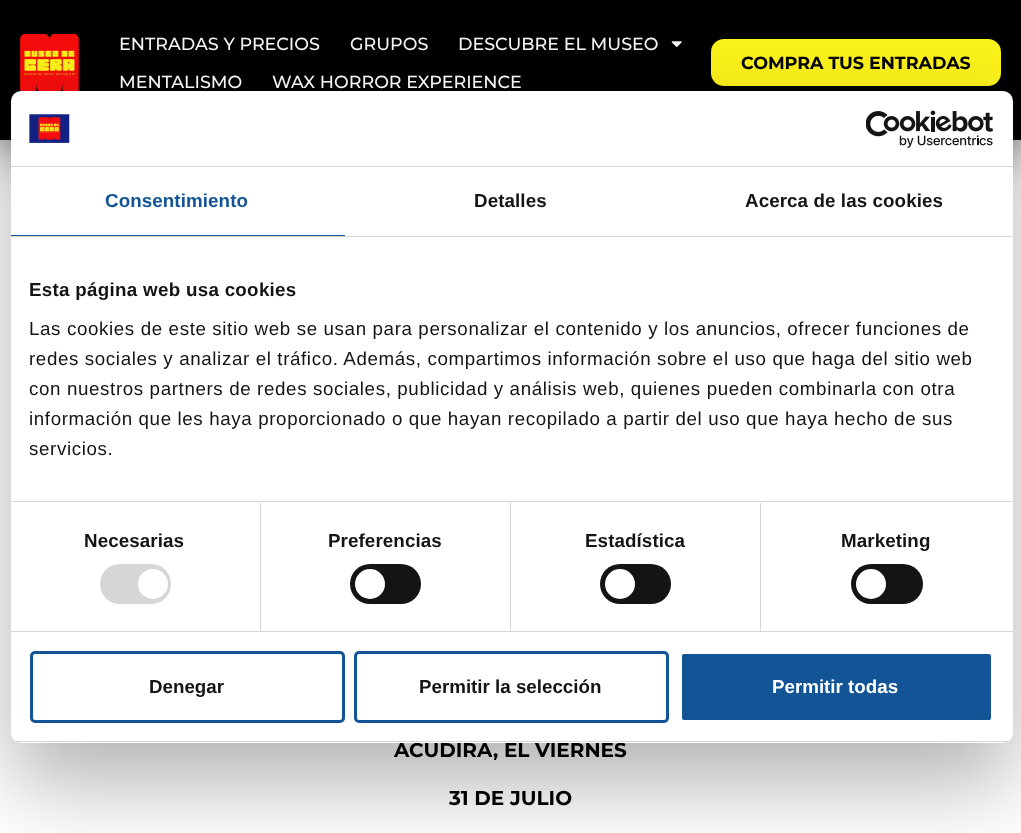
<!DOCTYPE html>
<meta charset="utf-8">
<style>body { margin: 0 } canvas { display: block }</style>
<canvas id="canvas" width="1021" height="833"></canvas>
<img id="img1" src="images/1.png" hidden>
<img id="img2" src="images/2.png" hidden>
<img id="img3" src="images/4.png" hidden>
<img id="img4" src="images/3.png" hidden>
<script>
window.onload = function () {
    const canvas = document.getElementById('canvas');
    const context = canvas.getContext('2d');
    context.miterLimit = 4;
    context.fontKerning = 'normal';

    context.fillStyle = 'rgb(255, 255, 255)';
    context.fillRect(0, 0, 1021, 833);
    context.fillStyle = 'rgb(0, 0, 0)';
    context.filter = 'blur(31px)';
    context.beginPath();
    context.rect(0, 0, 1021, 140);
    context.fill();
    context.filter = 'none';
    context.fillRect(0, 0, 1021, 140);
    context.drawImage(document.getElementById('img1'), 20, 34, 59, 57);
    context.drawImage(document.getElementById('img2'), 671, 41, 11, 6);
    context.fillStyle = 'rgb(251, 241, 27)';
    context.beginPath();
    context.roundRect(711, 39, 290, 47, 13);
    context.fill();
    context.fillStyle = 'rgba(0, 0, 0, 0.3)';
    context.filter = 'blur(42.5px)';
    context.beginPath();
    context.roundRect(11, 131, 1002, 652, 10);
    context.fill();
    context.filter = 'none';
    context.font = '500 17.5px Montserrat';
    context.fillStyle = 'rgb(243, 245, 248)';
    context.fillText('ENTRADAS Y PRECIOS', 119, 50);
    context.fillText('GRUPOS', 350, 50);
    context.fillText('DESCUBRE EL MUSEO', 458, 50);
    context.fillText('MENTALISMO', 119, 88);
    context.fillText('WAX HORROR EXPERIENCE', 272, 88);
    context.font = 'bold 17.5px Montserrat';
    context.fillStyle = 'rgb(0, 0, 0)';
    context.fillText('COMPRA TUS ENTRADAS', 741, 69);
    context.font = 'bold 20px Montserrat';
    context.fillText('ACUDIRÁ, EL VIERNES', 394, 757);
    context.fillStyle = 'rgb(255, 255, 255)';
    context.beginPath();
    context.roundRect(11, 91, 1002, 652, 10);
    context.fill();
    context.fillStyle = 'rgb(18, 84, 149)';
    context.beginPath();
    context.roundRect(680.5, 652.5, 312, 69, 3.5);
    context.fill();
    context.strokeStyle = 'rgb(255, 255, 255)';
    context.lineWidth = 3;
    context.stroke();
    context.font = 'bold 18.75px Liberation Sans';
    context.fillStyle = 'rgb(255, 255, 255)';
    context.fillText('Permitir todas', 772, 693);
    context.beginPath();
    context.roundRect(355.5, 652.5, 312, 69, 3.5);
    context.strokeStyle = 'rgb(18, 84, 149)';
    context.stroke();
    context.fillStyle = 'rgb(20, 20, 20)';
    context.fillText('Permitir la selección', 419, 693);
    context.beginPath();
    context.roundRect(31.5, 652.5, 312, 69, 3.5);
    context.stroke();
    context.fillText('Denegar', 149, 693);
    context.save();
    context.beginPath();
    context.roundRect(11, 91, 1002, 652, 10);
    context.clip();
    context.fillStyle = 'rgb(214, 214, 214)';
    context.fillRect(11, 741, 1002, 1);
    context.restore();
    context.beginPath();
    context.roundRect(851, 564, 72, 40, 20);
    context.fill();
    context.fillStyle = 'rgb(255, 255, 255)';
    context.beginPath();
    context.arc(871, 584, 15, 0, 2 * Math.PI);
    context.fill();
    context.fillStyle = 'rgb(20, 20, 20)';
    context.beginPath();
    context.roundRect(600, 564, 71, 40, 20);
    context.fill();
    context.fillStyle = 'rgb(255, 255, 255)';
    context.beginPath();
    context.arc(620, 584, 15, 0, 2 * Math.PI);
    context.fill();
    context.fillStyle = 'rgb(20, 20, 20)';
    context.beginPath();
    context.roundRect(350, 564, 71, 40, 20);
    context.fill();
    context.fillStyle = 'rgb(255, 255, 255)';
    context.beginPath();
    context.arc(370, 584, 15, 0, 2 * Math.PI);
    context.fill();
    context.fillStyle = 'rgb(214, 214, 214)';
    context.beginPath();
    context.roundRect(100, 564, 71, 40, 20);
    context.fill();
    context.fillStyle = 'rgb(255, 255, 255)';
    context.beginPath();
    context.arc(153, 584, 15, 0, 2 * Math.PI);
    context.fill();
    context.letterSpacing = '0.62px';
    context.font = '18.75px Liberation Sans';
    context.fillStyle = 'rgb(20, 20, 20)';
    context.fillText('servicios.', 29, 455);
    context.fillText('información que les haya proporcionado o que hayan recopilado a partir del uso que haya hecho de sus', 29, 425);
    context.fillText('con nuestros partners de redes sociales, publicidad y análisis web, quienes pueden combinarla con otra', 29, 395);
    context.fillText('redes sociales y analizar el tráfico. Además, compartimos información sobre el uso que haga del sitio web', 29, 365);
    context.fillText('Las cookies de este sitio web se usan para personalizar el contenido y los anuncios, ofrecer funciones de', 29, 335);
    context.letterSpacing = '0.3px';
    context.font = 'bold 18.75px Liberation Sans';
    context.fillText('Esta página web usa cookies', 29, 296);
    context.fillStyle = 'rgb(214, 214, 214)';
    context.fillRect(11, 501, 1002, 1);
    context.letterSpacing = '0.1px';
    context.fillStyle = 'rgb(20, 20, 20)';
    context.fillText('Acerca de las cookies', 745, 207);
    context.fillText('Detalles', 474, 207);
    context.fillStyle = 'rgb(18, 84, 149)';
    context.fillText('Consentimiento', 105, 207);
    context.fillRect(11, 235, 334, 1);
    context.fillStyle = 'rgb(214, 214, 214)';
    context.fillRect(11, 236, 1002, 1);
    context.fillStyle = 'rgb(20, 20, 20)';
    context.fillText('Marketing', 841, 547);
    context.fillText('Estadística', 585, 547);
    context.fillStyle = 'rgb(214, 214, 214)';
    context.fillRect(760, 503, 1, 128);
    context.fillStyle = 'rgb(20, 20, 20)';
    context.fillText('Preferencias', 328, 547);
    context.fillStyle = 'rgb(214, 214, 214)';
    context.fillRect(510, 503, 1, 128);
    context.fillStyle = 'rgb(20, 20, 20)';
    context.fillText('Necesarias', 84, 547);
    context.fillStyle = 'rgb(214, 214, 214)';
    context.fillRect(260, 503, 1, 128);
    context.fillRect(11, 631, 1002, 1);
    context.drawImage(document.getElementById('img3'), 866, 110, 127, 38);
    context.drawImage(document.getElementById('img4'), 29, 114, 41, 29);
    context.fillRect(11, 166, 1002, 1);
    context.letterSpacing = '0px';
    context.font = 'bold 20px Montserrat';
    context.fillStyle = 'rgb(0, 0, 0)';
    context.fillText('31 DE JULIO', 449, 805);
};
</script>
